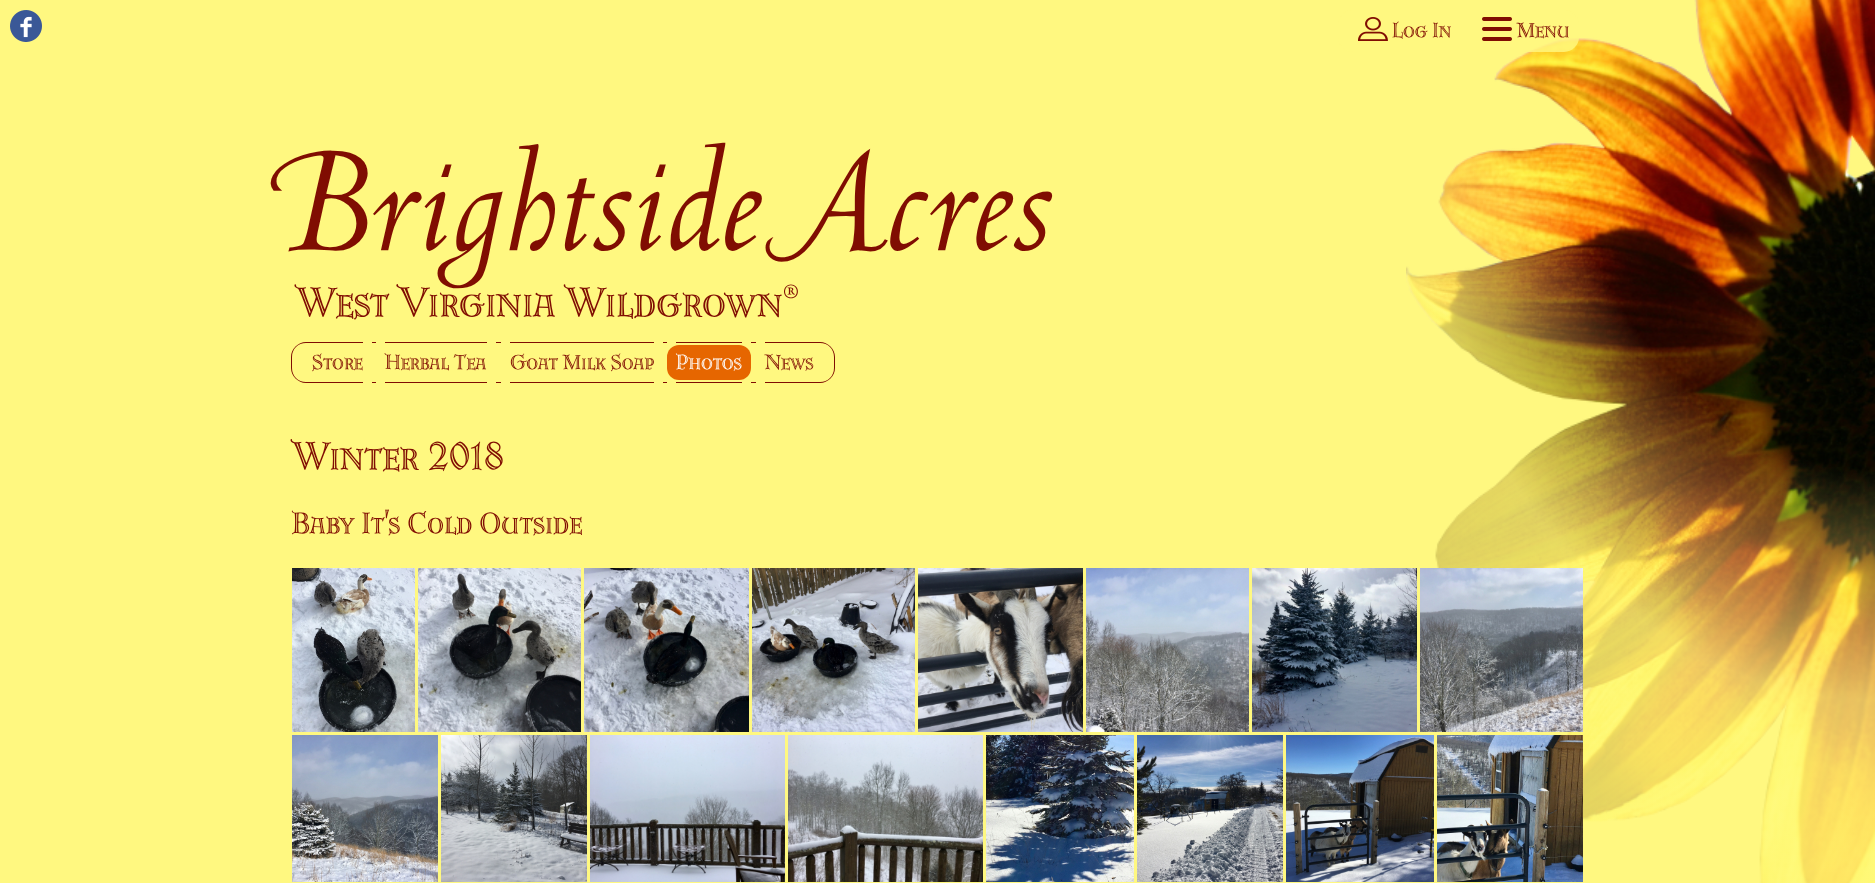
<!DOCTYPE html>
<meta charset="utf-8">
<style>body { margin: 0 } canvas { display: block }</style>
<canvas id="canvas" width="1875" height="883"></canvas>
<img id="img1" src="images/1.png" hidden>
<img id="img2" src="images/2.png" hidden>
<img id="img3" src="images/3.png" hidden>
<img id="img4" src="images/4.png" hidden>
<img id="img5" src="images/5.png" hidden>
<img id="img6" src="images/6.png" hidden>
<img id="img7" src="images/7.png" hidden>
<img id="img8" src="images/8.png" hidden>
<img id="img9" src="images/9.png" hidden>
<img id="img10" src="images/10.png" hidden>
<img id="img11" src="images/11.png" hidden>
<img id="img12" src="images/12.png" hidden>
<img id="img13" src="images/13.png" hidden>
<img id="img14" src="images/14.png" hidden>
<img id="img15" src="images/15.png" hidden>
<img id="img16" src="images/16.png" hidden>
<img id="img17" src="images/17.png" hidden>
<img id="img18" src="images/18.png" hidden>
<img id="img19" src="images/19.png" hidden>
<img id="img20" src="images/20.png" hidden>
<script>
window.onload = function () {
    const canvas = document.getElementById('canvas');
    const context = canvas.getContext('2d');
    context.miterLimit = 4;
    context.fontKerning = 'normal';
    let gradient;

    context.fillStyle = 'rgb(255, 248, 128)';
    context.fillRect(0, 0, 1875, 883);
    context.drawImage(document.getElementById('img1'), 1406, 0, 469, 883);
    context.drawImage(document.getElementById('img2'), 10, 10, 32, 32);
    gradient = context.createRadialGradient(1875, 0, 0, 1875, 0, 500);
    gradient.addColorStop(0, 'rgba(255, 248, 128, 0)');
    gradient.addColorStop(0.67, 'rgba(255, 248, 128, 0)');
    gradient.addColorStop(1, 'rgba(255, 248, 128, 0.75)');
    context.fillStyle = gradient;
    context.beginPath();
    context.rect(1406, 51, 469, 832);
    context.save();
    context.clip();
    context.scale(1, 700 / 500);
    context.fillRect(0, 0, 1875, 631);
    context.restore();
    context.fillStyle = 'rgba(255, 248, 128, 0.8)';
    context.beginPath();
    context.roundRect(1338, 10, 241, 42, 15);
    context.fill();
    context.drawImage(document.getElementById('img3'), 1358, 17, 30, 24);
    context.drawImage(document.getElementById('img4'), 1482, 17, 30, 24);
    context.fillStyle = 'rgb(128, 13, 2)';
    context.beginPath();
    context.moveTo(306, 342);
    context.lineTo(363, 342);
    context.lineTo(363, 383);
    context.lineTo(306, 383);
    context.bezierCurveTo(298, 383, 291, 376, 291, 368);
    context.lineTo(291, 357);
    context.bezierCurveTo(291, 349, 298, 342, 306, 342);
    context.closePath();
    context.moveTo(306, 343);
    context.lineTo(363, 343);
    context.lineTo(363, 382);
    context.lineTo(306, 382);
    context.bezierCurveTo(298, 382, 292, 376, 292, 368);
    context.lineTo(292, 357);
    context.bezierCurveTo(292, 349, 298, 343, 306, 343);
    context.closePath();
    context.fill('evenodd');
    context.fillRect(372, 382, 4, 1);
    context.fillRect(372, 342, 4, 1);
    context.fillRect(385, 342, 102, 1);
    context.fillRect(385, 382, 102, 1);
    context.fillRect(496, 342, 5, 1);
    context.fillRect(496, 382, 5, 1);
    context.fillRect(510, 342, 144, 1);
    context.fillRect(510, 382, 144, 1);
    context.fillRect(663, 382, 4, 1);
    context.fillRect(663, 342, 4, 1);
    context.fillRect(676, 342, 66, 1);
    context.fillRect(676, 382, 66, 1);
    context.fillStyle = 'rgb(230, 102, 0)';
    context.beginPath();
    context.roundRect(667, 345, 84, 35, 12);
    context.fill();
    context.fillStyle = 'rgb(128, 13, 2)';
    context.fillRect(751, 342, 5, 1);
    context.fillRect(751, 382, 5, 1);
    context.beginPath();
    context.moveTo(765, 342);
    context.lineTo(820, 342);
    context.bezierCurveTo(828, 342, 835, 349, 835, 357);
    context.lineTo(835, 368);
    context.bezierCurveTo(835, 376, 828, 383, 820, 383);
    context.lineTo(765, 383);
    context.closePath();
    context.moveTo(765, 343);
    context.lineTo(820, 343);
    context.bezierCurveTo(828, 343, 834, 349, 834, 357);
    context.lineTo(834, 368);
    context.bezierCurveTo(834, 376, 828, 382, 820, 382);
    context.lineTo(765, 382);
    context.closePath();
    context.fill('evenodd');
    context.drawImage(document.getElementById('img5'), 292, 568, 123, 164);
    context.drawImage(document.getElementById('img6'), 418, 568, 163, 164);
    context.drawImage(document.getElementById('img7'), 584, 568, 165, 164);
    context.drawImage(document.getElementById('img8'), 752, 568, 163, 164);
    context.drawImage(document.getElementById('img9'), 918, 568, 165, 164);
    context.drawImage(document.getElementById('img10'), 1086, 568, 163, 164);
    context.drawImage(document.getElementById('img11'), 1252, 568, 165, 164);
    context.drawImage(document.getElementById('img12'), 1420, 568, 163, 164);
    context.drawImage(document.getElementById('img13'), 292, 735, 146, 147);
    context.drawImage(document.getElementById('img14'), 441, 735, 146, 147);
    context.drawImage(document.getElementById('img15'), 590, 735, 195, 147);
    context.drawImage(document.getElementById('img16'), 788, 735, 195, 147);
    context.drawImage(document.getElementById('img17'), 986, 735, 148, 147);
    context.drawImage(document.getElementById('img18'), 1137, 735, 146, 147);
    context.drawImage(document.getElementById('img19'), 1286, 735, 148, 147);
    context.drawImage(document.getElementById('img20'), 1437, 735, 146, 147);
    context.font = '22.25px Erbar';
    context.fillText('Log In', 1392, 37);
    context.fillText('Menu', 1517, 37);
    context.font = '159.5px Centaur';
    context.fillText('Brightside Acres', 287, 250);
    context.font = '45px Erbar';
    context.fillText('West Virginia Wildgrown', 296, 316);
    context.font = '38px Erbar';
    context.fillText('®', 783, 312);
    context.font = '22.25px Erbar';
    context.fillText('Store', 312, 369);
    context.fillText('Herbal Tea', 385, 369);
    context.fillText('Goat Milk Soap', 510, 369);
    context.fillStyle = 'rgb(255, 255, 255)';
    context.fillText('Photos', 676, 369);
    context.fillStyle = 'rgb(128, 13, 2)';
    context.fillText('News', 765, 369);
    context.font = '42.5px Erbar';
    context.fillText('Winter 2018', 292, 469);
    context.font = '32px Erbar';
    context.fillText('Baby It\'s Cold Outside', 292, 533);
};
</script>
